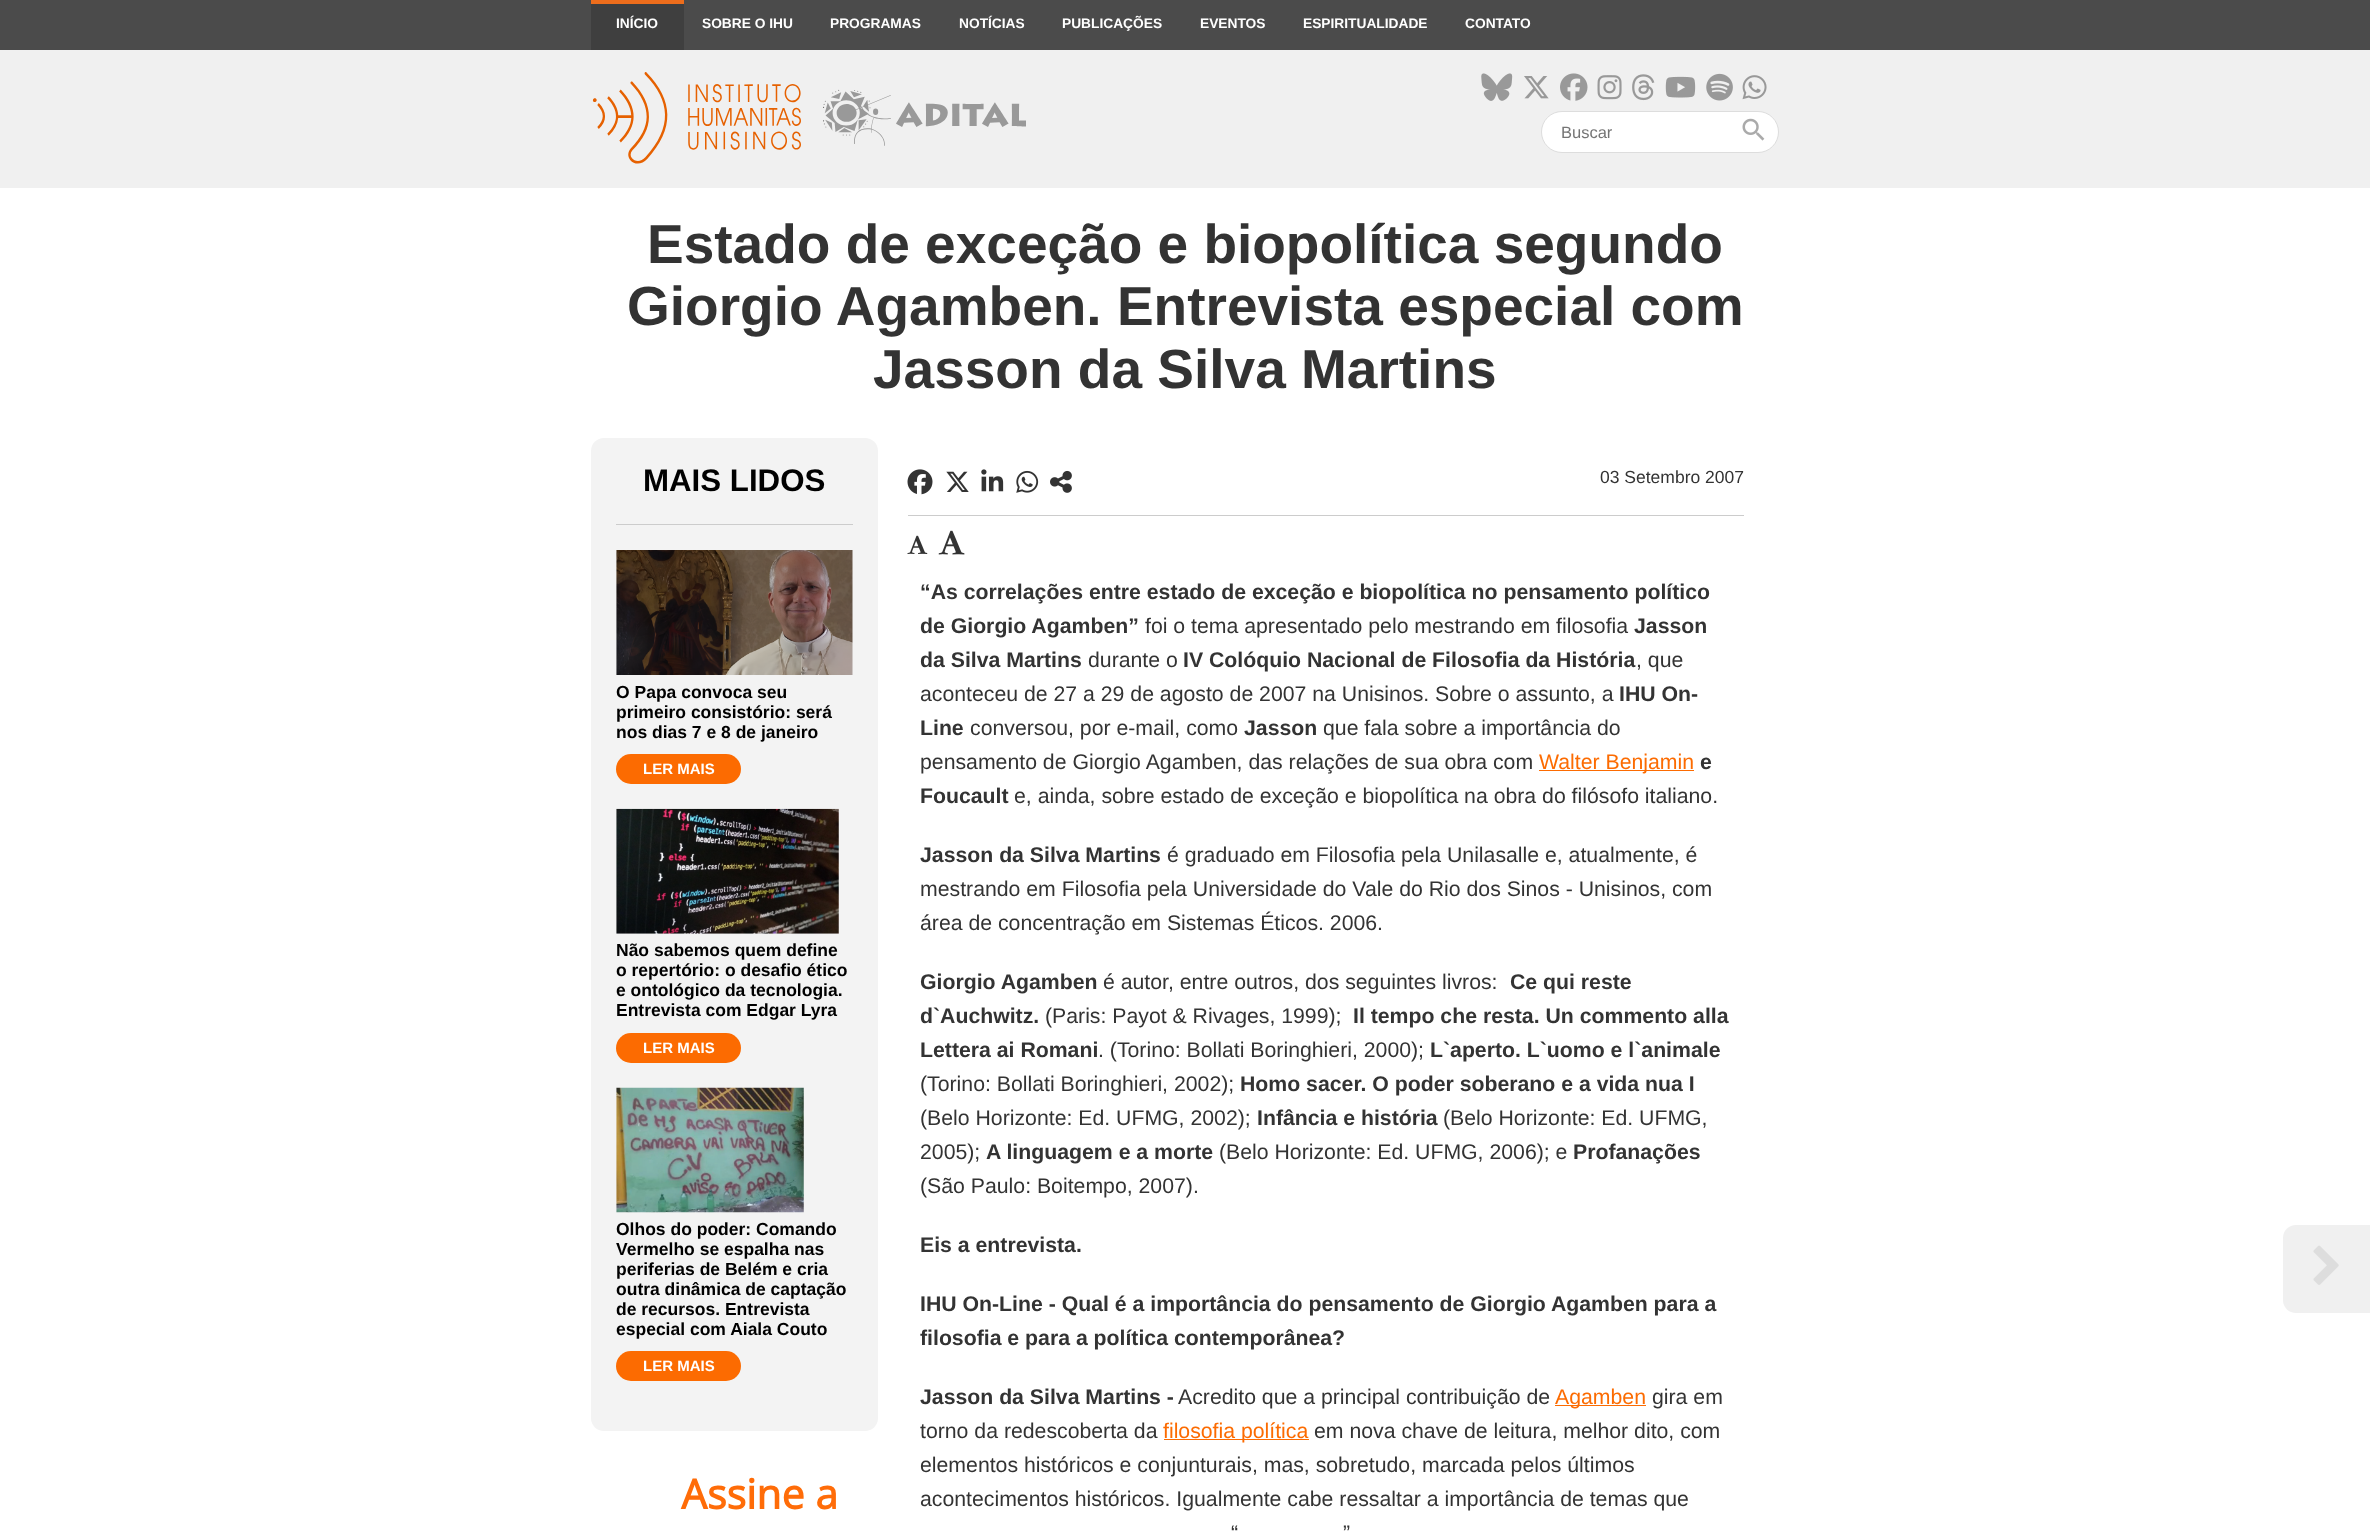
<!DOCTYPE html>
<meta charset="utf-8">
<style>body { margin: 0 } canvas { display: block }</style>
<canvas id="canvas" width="2370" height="1531"></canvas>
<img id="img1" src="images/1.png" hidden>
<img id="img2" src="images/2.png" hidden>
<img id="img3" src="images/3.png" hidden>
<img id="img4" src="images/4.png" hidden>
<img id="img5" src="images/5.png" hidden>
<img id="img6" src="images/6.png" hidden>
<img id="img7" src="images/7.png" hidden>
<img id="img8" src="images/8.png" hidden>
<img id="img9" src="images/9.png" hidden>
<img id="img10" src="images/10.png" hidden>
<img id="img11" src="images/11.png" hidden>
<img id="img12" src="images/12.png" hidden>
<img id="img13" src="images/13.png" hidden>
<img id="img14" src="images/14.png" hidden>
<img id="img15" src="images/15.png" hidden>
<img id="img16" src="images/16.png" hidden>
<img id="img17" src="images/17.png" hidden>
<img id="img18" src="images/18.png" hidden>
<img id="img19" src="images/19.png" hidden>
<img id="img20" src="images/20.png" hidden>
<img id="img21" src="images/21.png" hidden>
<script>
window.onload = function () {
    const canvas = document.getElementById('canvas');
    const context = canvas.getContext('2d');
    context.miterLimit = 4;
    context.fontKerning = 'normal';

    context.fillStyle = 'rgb(255, 255, 255)';
    context.fillRect(0, 0, 2370, 1531);
    context.fillStyle = 'rgb(75, 75, 75)';
    context.fillRect(0, 0, 2370, 50);
    context.fillStyle = 'rgb(63, 63, 63)';
    context.fillRect(591, 4, 93, 46);
    context.fillStyle = 'rgb(237, 109, 28)';
    context.fillRect(591, 0, 93, 4);
    context.fillStyle = 'rgb(240, 240, 240)';
    context.fillRect(0, 50, 2370, 138);
    context.drawImage(document.getElementById('img1'), 592, 72, 434, 92);
    context.drawImage(document.getElementById('img2'), 1481, 73, 32, 28);
    context.drawImage(document.getElementById('img3'), 1524, 76, 25, 23);
    context.drawImage(document.getElementById('img4'), 1560, 73, 28, 28);
    context.drawImage(document.getElementById('img5'), 1597, 75, 25, 25);
    context.drawImage(document.getElementById('img6'), 1632, 74, 23, 27);
    context.drawImage(document.getElementById('img7'), 1665, 76, 31, 22);
    context.drawImage(document.getElementById('img8'), 1706, 73, 27, 28);
    context.drawImage(document.getElementById('img9'), 1742, 75, 25, 25);
    context.fillStyle = 'rgb(255, 255, 255)';
    context.beginPath();
    context.roundRect(1541.5, 111.5, 237, 41, 20.5);
    context.fill();
    context.strokeStyle = 'rgb(221, 221, 221)';
    context.stroke();
    context.drawImage(document.getElementById('img10'), 1742, 118, 23, 23);
    context.fillStyle = 'rgb(243, 243, 243)';
    context.beginPath();
    context.roundRect(591, 438, 287, 993, 13);
    context.fill();
    context.fillStyle = 'rgb(204, 204, 204)';
    context.fillRect(616, 524, 237, 1);
    context.drawImage(document.getElementById('img11'), 616, 550, 237, 125);
    context.fillStyle = 'rgb(252, 107, 1)';
    context.beginPath();
    context.roundRect(616, 754, 125, 30, 15);
    context.fill();
    context.drawImage(document.getElementById('img12'), 616, 808, 223, 126);
    context.beginPath();
    context.roundRect(616, 1033, 125, 30, 15);
    context.fill();
    context.drawImage(document.getElementById('img13'), 616, 1087, 188, 126);
    context.beginPath();
    context.roundRect(616, 1351, 125, 30, 15);
    context.fill();
    context.fillStyle = 'rgb(204, 204, 204)';
    context.fillRect(908, 515, 836, 1);
    context.drawImage(document.getElementById('img14'), 907, 469, 26, 26);
    context.drawImage(document.getElementById('img15'), 946, 471, 23, 21);
    context.drawImage(document.getElementById('img16'), 981, 469, 23, 23);
    context.drawImage(document.getElementById('img17'), 1016, 470, 23, 23);
    context.drawImage(document.getElementById('img18'), 1050, 470, 22, 23);
    context.drawImage(document.getElementById('img19'), 907, 535, 21, 19);
    context.drawImage(document.getElementById('img20'), 938, 530, 27, 25);
    context.fillStyle = 'rgb(252, 107, 1)';
    context.fillRect(1539, 770, 155, 1);
    context.fillRect(1555, 1405, 91, 1);
    context.fillRect(1164, 1439, 145, 1);
    context.fillStyle = 'rgb(240, 240, 240)';
    context.beginPath();
    context.roundRect(2283, 1225, 87, 88, [13, 0, 0, 13]);
    context.fill();
    context.drawImage(document.getElementById('img21'), 2313, 1245, 26, 40);
    context.font = 'bold 13.75px Liberation Sans';
    context.fillStyle = 'rgb(255, 255, 255)';
    context.fillText('INÍCIO', 616, 28);
    context.fillText('SOBRE O IHU', 702, 28);
    context.fillText('PROGRAMAS', 830, 28);
    context.fillText('NOTÍCIAS', 959, 28);
    context.fillText('PUBLICAÇÕES', 1062, 28);
    context.fillText('EVENTOS', 1200, 28);
    context.fillText('ESPIRITUALIDADE', 1303, 28);
    context.fillText('CONTATO', 1465, 28);
    context.font = '16.5px Liberation Sans';
    context.fillStyle = 'rgb(117, 117, 117)';
    context.fillText('Buscar', 1561, 138);
    context.font = 'bold 55px Liberation Sans';
    context.fillStyle = 'rgb(51, 51, 51)';
    context.fillText('Estado de exceção e biopolítica segundo', 647, 263);
    context.fillText('Giorgio Agamben. Entrevista especial com', 627, 325);
    context.fillText('Jasson da Silva Martins', 873, 388);
    context.font = 'bold 31.25px Liberation Sans';
    context.fillStyle = 'rgb(0, 0, 0)';
    context.fillText('MAIS LIDOS', 643, 491);
    context.font = 'bold 17.5px Liberation Sans';
    context.fillText('O Papa convoca seu', 616, 698);
    context.fillText('primeiro consistório: será', 616, 718);
    context.fillText('nos dias 7 e 8 de janeiro', 616, 738);
    context.font = 'bold 15px Liberation Sans';
    context.fillStyle = 'rgb(255, 255, 255)';
    context.fillText('LER MAIS', 643, 774);
    context.font = 'bold 17.5px Liberation Sans';
    context.fillStyle = 'rgb(0, 0, 0)';
    context.fillText('Não sabemos quem define', 616, 956);
    context.fillText('o repertório: o desafio ético', 616, 976);
    context.fillText('e ontológico da tecnologia.', 616, 996);
    context.fillText('Entrevista com Edgar Lyra', 616, 1016);
    context.font = 'bold 15px Liberation Sans';
    context.fillStyle = 'rgb(255, 255, 255)';
    context.fillText('LER MAIS', 643, 1053);
    context.font = 'bold 17.5px Liberation Sans';
    context.fillStyle = 'rgb(0, 0, 0)';
    context.fillText('Olhos do poder: Comando', 616, 1235);
    context.fillText('Vermelho se espalha nas', 616, 1255);
    context.fillText('periferias de Belém e cria', 616, 1275);
    context.fillText('outra dinâmica de captação', 616, 1295);
    context.fillText('de recursos. Entrevista', 616, 1315);
    context.fillText('especial com Aiala Couto', 616, 1335);
    context.font = 'bold 15px Liberation Sans';
    context.fillStyle = 'rgb(255, 255, 255)';
    context.fillText('LER MAIS', 643, 1371);
    context.font = 'bold 41px Open Sans';
    context.fillStyle = 'rgb(255, 108, 8)';
    context.fillText('Assine a', 681, 1509);
    context.font = '17.5px Liberation Sans';
    context.fillStyle = 'rgb(51, 51, 51)';
    context.fillText('03 Setembro 2007', 1600, 483);
    context.font = 'bold 21.25px Liberation Sans';
    context.fillText('“As correlações entre estado de exceção e biopolítica no pensamento político', 920, 599);
    context.fillText('de Giorgio Agamben”', 920, 633);
    context.font = '21.25px Liberation Sans';
    context.fillText('foi o tema apresentado pelo mestrando em filosofia', 1145, 633);
    context.font = 'bold 21.25px Liberation Sans';
    context.fillText('Jasson', 1634, 633);
    context.fillText('da Silva Martins', 920, 667);
    context.font = '21.25px Liberation Sans';
    context.fillText('durante o', 1088, 667);
    context.font = 'bold 21.25px Liberation Sans';
    context.fillText('IV Colóquio Nacional de Filosofia da História', 1183, 667);
    context.font = '21.25px Liberation Sans';
    context.fillText(', que', 1636, 667);
    context.fillText('aconteceu de 27 a 29 de agosto de 2007 na Unisinos. Sobre o assunto, a', 920, 701);
    context.font = 'bold 21.25px Liberation Sans';
    context.fillText('IHU On-', 1619, 701);
    context.fillText('Line', 920, 735);
    context.font = '21.25px Liberation Sans';
    context.fillText('conversou, por e-mail, como', 970, 735);
    context.font = 'bold 21.25px Liberation Sans';
    context.fillText('Jasson', 1244, 735);
    context.font = '21.25px Liberation Sans';
    context.fillText('que fala sobre a importância do', 1323, 735);
    context.fillText('pensamento de Giorgio Agamben, das relações de sua obra com', 920, 769);
    context.fillStyle = 'rgb(252, 107, 1)';
    context.fillText('Walter Benjamin', 1539, 769);
    context.font = 'bold 21.25px Liberation Sans';
    context.fillStyle = 'rgb(51, 51, 51)';
    context.fillText('e', 1700, 769);
    context.fillText('Foucault', 920, 803);
    context.font = '21.25px Liberation Sans';
    context.fillText('e, ainda, sobre estado de exceção e biopolítica na obra do filósofo italiano.', 1014, 803);
    context.font = 'bold 21.25px Liberation Sans';
    context.fillText('Jasson da Silva Martins', 920, 862);
    context.font = '21.25px Liberation Sans';
    context.fillText('é graduado em Filosofia pela Unilasalle e, atualmente, é', 1167, 862);
    context.fillText('mestrando em Filosofia pela Universidade do Vale do Rio dos Sinos - Unisinos, com', 920, 896);
    context.fillText('área de concentração em Sistemas Éticos. 2006.', 920, 930);
    context.font = 'bold 21.25px Liberation Sans';
    context.fillText('Giorgio Agamben', 920, 989);
    context.font = '21.25px Liberation Sans';
    context.fillText('é autor, entre outros, dos seguintes livros:', 1103, 989);
    context.font = 'bold 21.25px Liberation Sans';
    context.fillText('Ce qui reste', 1510, 989);
    context.fillText('d`Auchwitz.', 920, 1023);
    context.font = '21.25px Liberation Sans';
    context.fillText('(Paris: Payot & Rivages, 1999);', 1045, 1023);
    context.font = 'bold 21.25px Liberation Sans';
    context.fillText('Il tempo che resta. Un commento alla', 1353, 1023);
    context.fillText('Lettera ai Romani', 920, 1057);
    context.font = '21.25px Liberation Sans';
    context.fillText('. (Torino: Bollati Boringhieri, 2000);', 1098, 1057);
    context.font = 'bold 21.25px Liberation Sans';
    context.fillText('L`aperto. L`uomo e l`animale', 1430, 1057);
    context.font = '21.25px Liberation Sans';
    context.fillText('(Torino: Bollati Boringhieri, 2002);', 920, 1091);
    context.font = 'bold 21.25px Liberation Sans';
    context.fillText('Homo sacer. O poder soberano e a vida nua I', 1240, 1091);
    context.font = '21.25px Liberation Sans';
    context.fillText('(Belo Horizonte: Ed. UFMG, 2002);', 920, 1125);
    context.font = 'bold 21.25px Liberation Sans';
    context.fillText('Infância e história', 1257, 1125);
    context.font = '21.25px Liberation Sans';
    context.fillText('(Belo Horizonte: Ed. UFMG,', 1443, 1125);
    context.fillText('2005);', 920, 1159);
    context.font = 'bold 21.25px Liberation Sans';
    context.fillText('A linguagem e a morte', 986, 1159);
    context.font = '21.25px Liberation Sans';
    context.fillText('(Belo Horizonte: Ed. UFMG, 2006); e', 1219, 1159);
    context.font = 'bold 21.25px Liberation Sans';
    context.fillText('Profanações', 1573, 1159);
    context.font = '21.25px Liberation Sans';
    context.fillText('(São Paulo: Boitempo, 2007).', 920, 1193);
    context.font = 'bold 21.25px Liberation Sans';
    context.fillText('Eis a entrevista.', 920, 1252);
    context.fillText('IHU On-Line - Qual é a importância do pensamento de Giorgio Agamben para a', 920, 1311);
    context.fillText('filosofia e para a política contemporânea?', 920, 1345);
    context.fillText('Jasson da Silva Martins -', 920, 1404);
    context.font = '21.25px Liberation Sans';
    context.fillText('Acredito que a principal contribuição de', 1178, 1404);
    context.fillStyle = 'rgb(252, 107, 1)';
    context.fillText('Agamben', 1555, 1404);
    context.fillStyle = 'rgb(51, 51, 51)';
    context.fillText('gira em', 1652, 1404);
    context.fillText('torno da redescoberta da', 920, 1438);
    context.fillStyle = 'rgb(252, 107, 1)';
    context.fillText('filosofia política', 1163, 1438);
    context.fillStyle = 'rgb(51, 51, 51)';
    context.fillText('em nova chave de leitura, melhor dito, com', 1314, 1438);
    context.fillText('elementos históricos e conjunturais, mas, sobretudo, marcada pelos últimos', 920, 1472);
    context.fillText('acontecimentos históricos. Igualmente cabe ressaltar a importância de temas que', 920, 1506);
    context.fillText('“', 1231, 1540);
    context.fillText('”', 1343, 1540);
};
</script>
